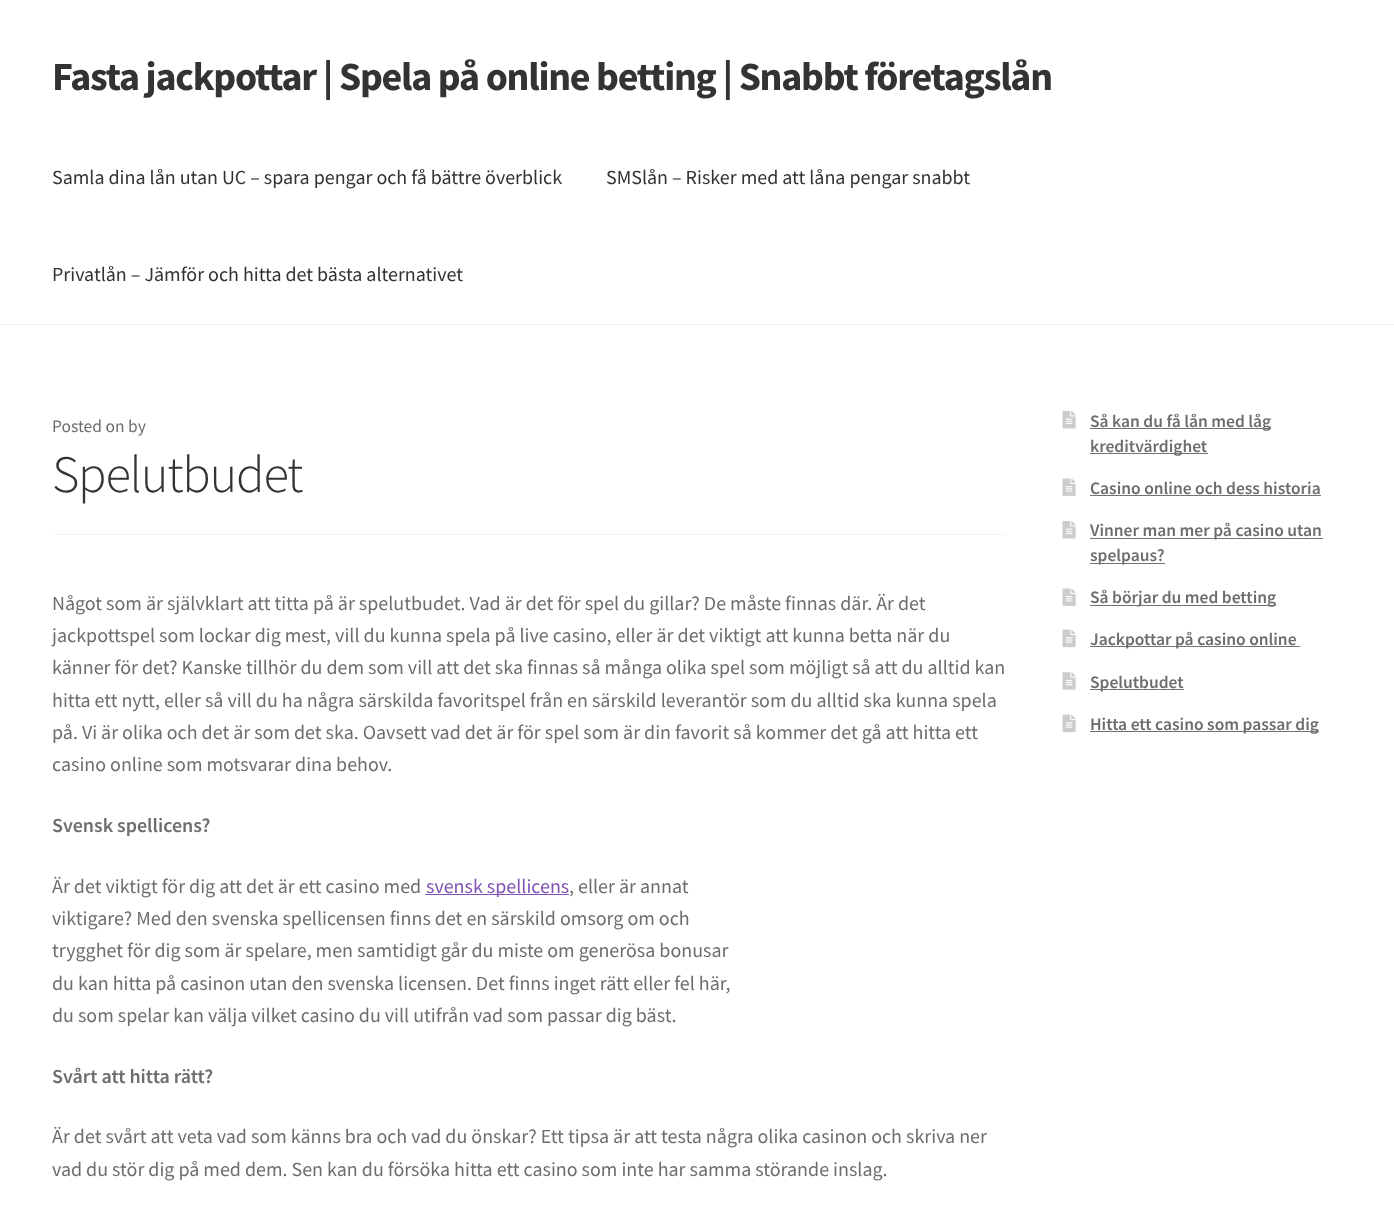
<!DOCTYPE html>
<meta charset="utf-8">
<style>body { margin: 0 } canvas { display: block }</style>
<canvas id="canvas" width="1394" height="1211"></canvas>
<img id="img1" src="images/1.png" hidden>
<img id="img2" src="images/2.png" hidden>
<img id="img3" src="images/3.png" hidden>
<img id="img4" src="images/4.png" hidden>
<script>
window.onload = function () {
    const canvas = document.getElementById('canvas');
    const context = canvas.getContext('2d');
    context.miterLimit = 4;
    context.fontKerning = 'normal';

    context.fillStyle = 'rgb(255, 255, 255)';
    context.fillRect(0, 0, 1394, 1211);
    context.fillStyle = 'rgb(240, 240, 240)';
    context.fillRect(0, 324, 1394, 1);
    context.fillStyle = 'rgb(242, 242, 242)';
    context.fillRect(53, 534, 953, 1);
    context.fillStyle = 'rgb(127, 84, 179)';
    context.fillRect(425, 894, 144, 1);
    context.drawImage(document.getElementById('img1'), 1062, 411, 14, 18);
    context.fillStyle = 'rgb(114, 114, 114)';
    context.fillRect(1090, 428, 181, 1);
    context.fillRect(1090, 453, 118, 1);
    context.drawImage(document.getElementById('img2'), 1062, 478, 14, 18);
    context.fillRect(1090, 495, 231, 1);
    context.drawImage(document.getElementById('img1'), 1062, 521, 14, 18);
    context.fillRect(1090, 538, 233, 1);
    context.fillRect(1090, 563, 75, 1);
    context.drawImage(document.getElementById('img2'), 1062, 588, 14, 18);
    context.fillRect(1090, 605, 186, 1);
    context.drawImage(document.getElementById('img3'), 1062, 629, 14, 19);
    context.fillRect(1090, 646, 210, 1);
    context.drawImage(document.getElementById('img4'), 1062, 672, 14, 18);
    context.fillRect(1090, 689, 94, 1);
    context.drawImage(document.getElementById('img3'), 1062, 714, 14, 19);
    context.fillRect(1090, 731, 229, 1);
    context.letterSpacing = '-1.25px';
    context.font = 'bold 40px Source Sans Pro';
    context.fillStyle = 'rgb(51, 51, 51)';
    context.fillText('Fasta jackpottar | Spela på online betting | Snabbt företagslån', 52, 90);
    context.letterSpacing = '0px';
    context.font = '20px Source Sans Pro';
    context.fillText('Samla dina lån utan UC – spara pengar och få bättre överblick', 52, 184);
    context.fillText('SMSlån – Risker med att låna pengar snabbt', 606, 184);
    context.fillText('Privatlån – Jämför och hitta det bästa alternativet', 52, 281);
    context.font = '17.5px Source Sans Pro';
    context.fillStyle = 'rgb(109, 109, 109)';
    context.fillText('Posted on by', 52, 432);
    context.letterSpacing = '-1.25px';
    context.font = '300 52.5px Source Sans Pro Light';
    context.fillStyle = 'rgb(51, 51, 51)';
    context.fillText('Spelutbudet', 52, 492);
    context.letterSpacing = '0px';
    context.font = '20px Source Sans Pro';
    context.fillStyle = 'rgb(109, 109, 109)';
    context.fillText('Något som är självklart att titta på är spelutbudet. Vad är det för spel du gillar? De måste finnas där. Är det', 52, 610);
    context.fillText('jackpottspel som lockar dig mest, vill du kunna spela på live casino, eller är det viktigt att kunna betta när du', 52, 642);
    context.fillText('känner för det? Kanske tillhör du dem som vill att det ska finnas så många olika spel som möjligt så att du alltid kan', 52, 674);
    context.fillText('hitta ett nytt, eller så vill du ha några särskilda favoritspel från en särskild leverantör som du alltid ska kunna spela', 52, 707);
    context.fillText('på. Vi är olika och det är som det ska. Oavsett vad det är för spel som är din favorit så kommer det gå att hitta ett', 52, 739);
    context.fillText('casino online som motsvarar dina behov.', 52, 771);
    context.font = '600 20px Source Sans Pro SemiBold';
    context.fillText('Svensk spellicens?', 52, 832);
    context.font = '20px Source Sans Pro';
    context.fillText('Är det viktigt för dig att det är ett casino med', 52, 893);
    context.fillStyle = 'rgb(127, 84, 179)';
    context.fillText('svensk spellicens', 426, 893);
    context.fillStyle = 'rgb(109, 109, 109)';
    context.fillText(', eller är annat', 569, 893);
    context.fillText('viktigare? Med den svenska spellicensen finns det en särskild omsorg om och', 52, 925);
    context.fillText('trygghet för dig som är spelare, men samtidigt går du miste om generösa bonusar', 52, 957);
    context.fillText('du kan hitta på casinon utan den svenska licensen. Det finns inget rätt eller fel här,', 52, 990);
    context.fillText('du som spelar kan välja vilket casino du vill utifrån vad som passar dig bäst.', 52, 1022);
    context.font = '600 20px Source Sans Pro SemiBold';
    context.fillText('Svårt att hitta rätt?', 52, 1083);
    context.font = '20px Source Sans Pro';
    context.fillText('Är det svårt att veta vad som känns bra och vad du önskar? Ett tipsa är att testa några olika casinon och skriva ner', 52, 1143);
    context.fillText('vad du stör dig på med dem. Sen kan du försöka hitta ett casino som inte har samma störande inslag.', 52, 1176);
    context.font = '600 17.5px Source Sans Pro SemiBold';
    context.fillText('Så kan du få lån med låg', 1090, 427);
    context.fillText('kreditvärdighet', 1090, 452);
    context.fillText('Casino online och dess historia', 1090, 494);
    context.fillText('Vinner man mer på casino utan', 1090, 536);
    context.fillText('spelpaus?', 1090, 561);
    context.fillText('Så börjar du med betting', 1090, 603);
    context.fillText('Jackpottar på casino online', 1090, 645);
    context.fillText('Spelutbudet', 1090, 688);
    context.fillText('Hitta ett casino som passar dig', 1090, 730);
};
</script>
